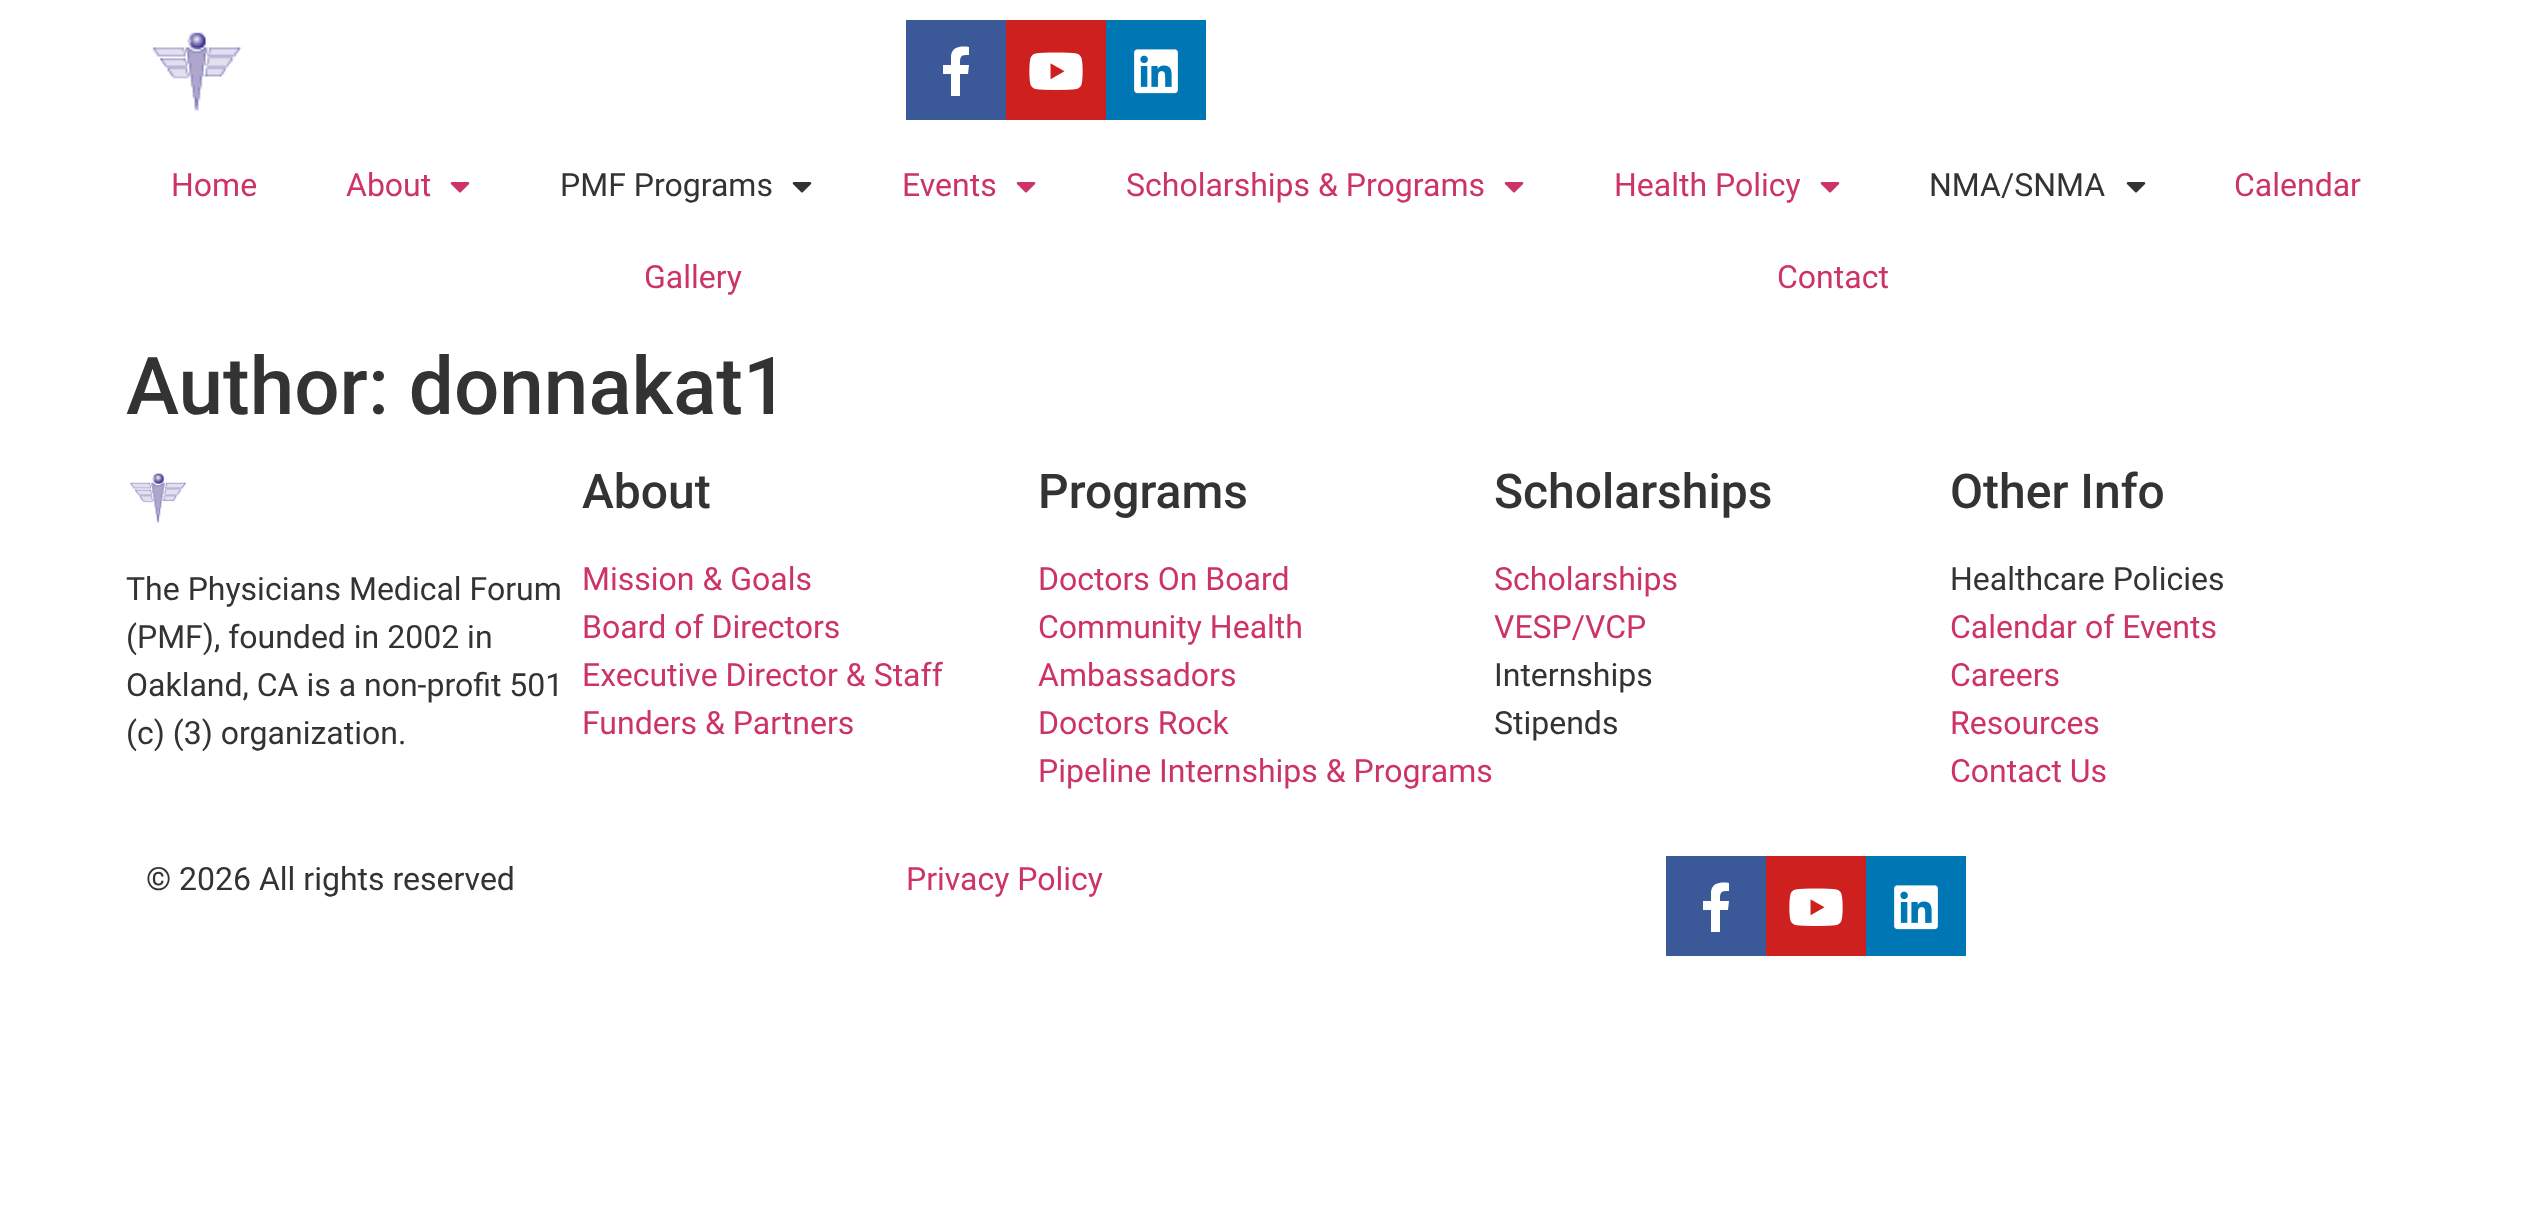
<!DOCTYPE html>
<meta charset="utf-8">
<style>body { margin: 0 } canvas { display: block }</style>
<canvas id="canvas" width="2531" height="1212"></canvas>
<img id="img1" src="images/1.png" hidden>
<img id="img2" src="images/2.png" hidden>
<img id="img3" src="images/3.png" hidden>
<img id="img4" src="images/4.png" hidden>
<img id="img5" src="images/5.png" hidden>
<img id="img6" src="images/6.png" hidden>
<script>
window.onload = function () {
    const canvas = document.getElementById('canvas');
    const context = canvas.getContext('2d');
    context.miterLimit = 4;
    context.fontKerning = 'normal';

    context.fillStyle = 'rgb(255, 255, 255)';
    context.fillRect(0, 0, 2531, 1212);
    context.drawImage(document.getElementById('img1'), 152, 32, 90, 79);
    context.fillStyle = 'rgb(59, 89, 152)';
    context.fillRect(906, 20, 100, 100);
    context.fillStyle = 'rgb(255, 255, 255)';
    context.beginPath();
    context.moveTo(968, 74);
    context.lineTo(960, 74);
    context.lineTo(960, 96);
    context.lineTo(951, 96);
    context.lineTo(951, 74);
    context.lineTo(943, 74);
    context.lineTo(943, 65);
    context.lineTo(951, 65);
    context.lineTo(951, 56);
    context.bezierCurveTo(952, 46, 962, 46, 969, 47);
    context.lineTo(969, 55);
    context.bezierCurveTo(960, 55, 960, 56, 960, 65);
    context.lineTo(969, 65);
    context.closePath();
    context.fill();
    context.fillStyle = 'rgb(205, 32, 31)';
    context.fillRect(1006, 20, 100, 100);
    context.drawImage(document.getElementById('img2'), 1029, 52, 54, 38);
    context.fillStyle = 'rgb(0, 119, 181)';
    context.fillRect(1106, 20, 100, 100);
    context.drawImage(document.getElementById('img3'), 1134, 49, 44, 45);
    context.drawImage(document.getElementById('img4'), 450, 182, 20, 11);
    context.drawImage(document.getElementById('img5'), 792, 182, 20, 11);
    context.drawImage(document.getElementById('img4'), 1016, 182, 20, 11);
    context.drawImage(document.getElementById('img4'), 1504, 182, 20, 11);
    context.drawImage(document.getElementById('img4'), 1820, 182, 20, 11);
    context.drawImage(document.getElementById('img5'), 2126, 182, 20, 11);
    context.drawImage(document.getElementById('img6'), 130, 473, 57, 50);
    context.fillStyle = 'rgb(59, 89, 152)';
    context.fillRect(1666, 856, 100, 100);
    context.fillStyle = 'rgb(255, 255, 255)';
    context.beginPath();
    context.moveTo(1728, 910);
    context.lineTo(1720, 910);
    context.lineTo(1720, 932);
    context.lineTo(1711, 932);
    context.lineTo(1711, 910);
    context.lineTo(1703, 910);
    context.lineTo(1703, 901);
    context.lineTo(1711, 901);
    context.lineTo(1711, 892);
    context.bezierCurveTo(1712, 882, 1722, 882, 1729, 883);
    context.lineTo(1729, 891);
    context.bezierCurveTo(1720, 891, 1720, 892, 1720, 901);
    context.lineTo(1729, 901);
    context.closePath();
    context.fill();
    context.fillStyle = 'rgb(205, 32, 31)';
    context.fillRect(1766, 856, 100, 100);
    context.drawImage(document.getElementById('img2'), 1789, 888, 54, 38);
    context.fillStyle = 'rgb(0, 119, 181)';
    context.fillRect(1866, 856, 100, 100);
    context.drawImage(document.getElementById('img3'), 1894, 885, 44, 45);
    context.font = '32px Roboto';
    context.fillStyle = 'rgb(204, 51, 102)';
    context.fillText('Home', 171, 196);
    context.fillText('About', 346, 196);
    context.fillStyle = 'rgb(51, 51, 51)';
    context.fillText('PMF Programs', 560, 196);
    context.fillStyle = 'rgb(204, 51, 102)';
    context.fillText('Events', 902, 196);
    context.fillText('Scholarships & Programs', 1126, 196);
    context.fillText('Health Policy', 1614, 196);
    context.fillStyle = 'rgb(51, 51, 51)';
    context.fillText('NMA/SNMA', 1929, 196);
    context.fillStyle = 'rgb(204, 51, 102)';
    context.fillText('Calendar', 2234, 196);
    context.fillText('Gallery', 644, 288);
    context.fillText('Contact', 1777, 288);
    context.font = '500 80px Roboto';
    context.fillStyle = 'rgb(51, 51, 51)';
    context.fillText('Author: donnakat1', 126, 414);
    context.font = '32px Roboto';
    context.fillText('The Physicians Medical Forum', 126, 600);
    context.fillText('(PMF), founded in 2002 in', 126, 648);
    context.fillText('Oakland, CA is a non-profit 501', 126, 696);
    context.fillText('(c) (3) organization.', 126, 744);
    context.font = '500 48px Roboto';
    context.fillText('About', 582, 508);
    context.font = '32px Roboto';
    context.fillStyle = 'rgb(204, 51, 102)';
    context.fillText('Mission & Goals', 582, 590);
    context.fillText('Board of Directors', 582, 638);
    context.fillText('Executive Director & Staff', 582, 686);
    context.fillText('Funders & Partners', 582, 734);
    context.font = '500 48px Roboto';
    context.fillStyle = 'rgb(51, 51, 51)';
    context.fillText('Programs', 1038, 508);
    context.font = '32px Roboto';
    context.fillStyle = 'rgb(204, 51, 102)';
    context.fillText('Doctors On Board', 1038, 590);
    context.fillText('Community Health', 1038, 638);
    context.fillText('Ambassadors', 1038, 686);
    context.fillText('Doctors Rock', 1038, 734);
    context.fillText('Pipeline Internships & Programs', 1038, 782);
    context.font = '500 48px Roboto';
    context.fillStyle = 'rgb(51, 51, 51)';
    context.fillText('Scholarships', 1494, 508);
    context.font = '32px Roboto';
    context.fillStyle = 'rgb(204, 51, 102)';
    context.fillText('Scholarships', 1494, 590);
    context.fillText('VESP/VCP', 1494, 638);
    context.fillStyle = 'rgb(51, 51, 51)';
    context.fillText('Internships', 1494, 686);
    context.fillText('Stipends', 1494, 734);
    context.font = '500 48px Roboto';
    context.fillText('Other Info', 1950, 508);
    context.font = '32px Roboto';
    context.fillText('Healthcare Policies', 1950, 590);
    context.fillStyle = 'rgb(204, 51, 102)';
    context.fillText('Calendar of Events', 1950, 638);
    context.fillText('Careers', 1950, 686);
    context.fillText('Resources', 1950, 734);
    context.fillText('Contact Us', 1950, 782);
    context.fillStyle = 'rgb(51, 51, 51)';
    context.fillText('© 2026 All rights reserved', 146, 890);
    context.fillStyle = 'rgb(204, 51, 102)';
    context.fillText('Privacy Policy', 906, 890);
};
</script>
